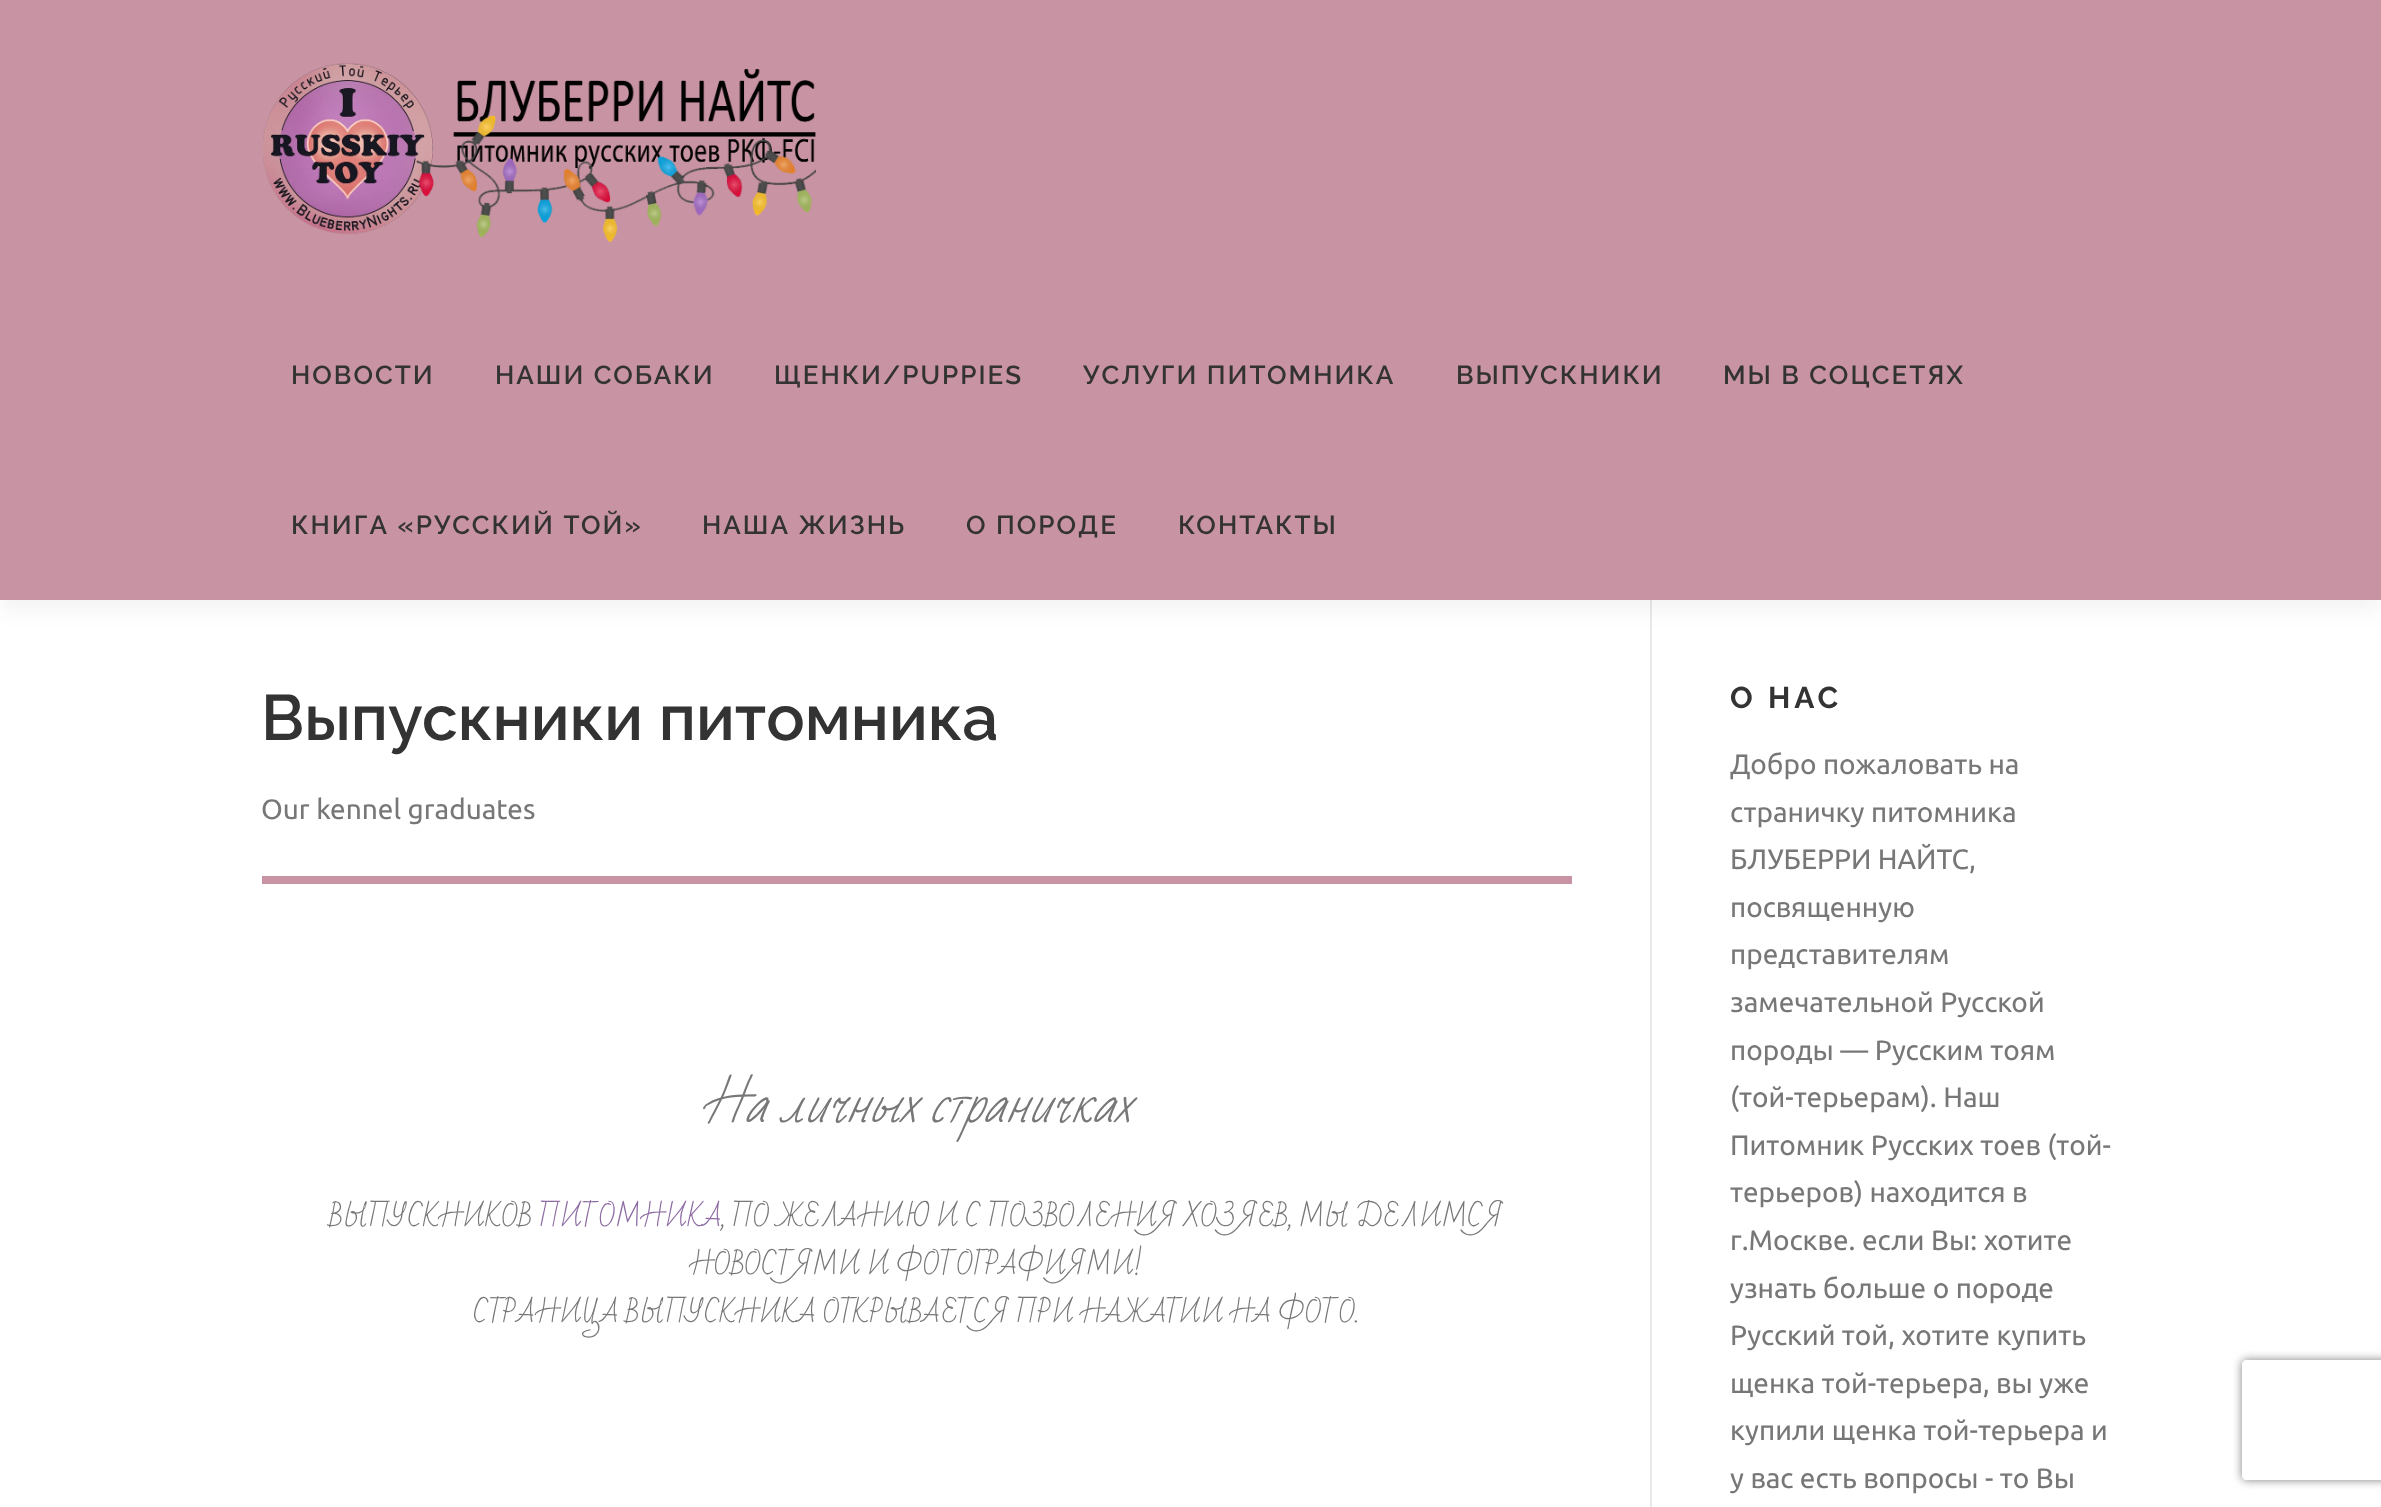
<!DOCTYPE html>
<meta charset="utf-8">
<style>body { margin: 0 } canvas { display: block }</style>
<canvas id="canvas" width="2381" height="1507"></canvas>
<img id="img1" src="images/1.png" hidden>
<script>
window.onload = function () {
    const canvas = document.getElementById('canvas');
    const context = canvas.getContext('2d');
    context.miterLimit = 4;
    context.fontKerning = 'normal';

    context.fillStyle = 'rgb(255, 255, 255)';
    context.fillRect(0, 0, 2381, 1507);
    context.fillStyle = 'rgb(233, 233, 233)';
    context.fillRect(1650, 600, 2, 907);
    context.fillStyle = 'rgba(50, 50, 50, 0.06)';
    context.filter = 'blur(10px)';
    context.beginPath();
    context.rect(0, 10, 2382, 600);
    context.fill();
    context.filter = 'none';
    context.fillStyle = 'rgb(200, 147, 163)';
    context.fillRect(0, 0, 2381, 600);
    context.drawImage(document.getElementById('img1'), 263, 63, 553, 179);
    context.fillRect(262, 876, 1310, 8);
    context.save();
    context.beginPath();
    context.moveTo(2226, 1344);
    context.lineTo(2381, 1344);
    context.lineTo(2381, 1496);
    context.lineTo(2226, 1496);
    context.closePath();
    context.moveTo(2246, 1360);
    context.lineTo(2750, 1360);
    context.bezierCurveTo(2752, 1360, 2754, 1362, 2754, 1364);
    context.lineTo(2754, 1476);
    context.bezierCurveTo(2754, 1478, 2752, 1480, 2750, 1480);
    context.lineTo(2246, 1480);
    context.bezierCurveTo(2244, 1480, 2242, 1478, 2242, 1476);
    context.lineTo(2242, 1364);
    context.bezierCurveTo(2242, 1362, 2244, 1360, 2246, 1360);
    context.closePath();
    context.clip('evenodd');
    context.fillStyle = 'rgb(128, 128, 128)';
    context.filter = 'blur(5px)';
    context.beginPath();
    context.roundRect(2242, 1360, 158, 120, 4);
    context.fill();
    context.filter = 'none';
    context.restore();
    context.letterSpacing = '2px';
    context.font = '600 26px Raleway';
    context.fillStyle = 'rgb(51, 51, 51)';
    context.fillText('НОВОСТИ', 291, 384);
    context.fillText('НАШИ СОБАКИ', 495, 384);
    context.fillText('ЩЕНКИ/PUPPIES', 774, 384);
    context.fillText('УСЛУГИ ПИТОМНИКА', 1083, 384);
    context.fillText('ВЫПУСКНИКИ', 1456, 384);
    context.fillText('МЫ В СОЦСЕТЯХ', 1723, 384);
    context.wordSpacing = '1px';
    context.fillText('КНИГА «РУССКИЙ ТОЙ»', 291, 534);
    context.fillText('НАША ЖИЗНЬ', 702, 534);
    context.wordSpacing = '0px';
    context.fillText('О ПОРОДЕ', 966, 534);
    context.fillText('КОНТАКТЫ', 1178, 534);
    context.letterSpacing = '0px';
    context.font = '600 64px Raleway';
    context.fillText('Выпускники питомника', 261, 740);
    context.font = '28px Ubuntu';
    context.fillStyle = 'rgb(119, 119, 119)';
    context.fillText('Our kennel graduates', 261, 819);
    context.font = 'italic 49px Bad Script';
    context.fillText('На личных страничках', 702, 1122);
    context.font = '26px Bad Script';
    context.fillText('ВЫПУСКНИКОВ', 329, 1226);
    context.fillStyle = 'rgb(140, 107, 163)';
    context.fillText('ПИТОМНИКА', 539, 1226);
    context.fillStyle = 'rgb(119, 119, 119)';
    context.fillText(', ПО ЖЕЛАНИЮ И С ПОЗВОЛЕНИЯ ХОЗЯЕВ, МЫ ДЕЛИМСЯ', 721, 1226);
    context.fillText('НОВОСТЯМИ И ФОТОГРАФИЯМИ!', 690, 1274);
    context.fillText('СТРАНИЦА ВЫПУСКНИКА ОТКРЫВАЕТСЯ ПРИ НАЖАТИИ НА ФОТО.', 473, 1322);
    context.letterSpacing = '4px';
    context.font = 'bold 30px Raleway';
    context.fillStyle = 'rgb(51, 51, 51)';
    context.fillText('O HAC', 1730, 708);
    context.letterSpacing = '0px';
    context.font = '28px Ubuntu';
    context.fillStyle = 'rgb(119, 119, 119)';
    context.fillText('Добро пожаловать на', 1730, 774);
    context.fillText('страничку питомника', 1730, 822);
    context.fillText('БЛУБЕРРИ НАЙТС,', 1730, 869);
    context.fillText('посвященную', 1730, 917);
    context.fillText('представителям', 1730, 964);
    context.fillText('замечательной Русской', 1730, 1012);
    context.fillText('породы — Русским тоям', 1730, 1060);
    context.fillText('(той-терьерам). Наш', 1730, 1107);
    context.fillText('Питомник Русских тоев (той-', 1730, 1155);
    context.fillText('терьеров) находится в', 1730, 1202);
    context.fillText('г.Москве. если Вы: хотите', 1730, 1250);
    context.fillText('узнать больше о породе', 1730, 1298);
    context.fillText('Русский той, хотите купить', 1730, 1345);
    context.fillText('щенка той-терьера, вы уже', 1730, 1393);
    context.fillText('купили щенка той-терьера и', 1730, 1440);
    context.fillText('у вас есть вопросы - то Вы', 1730, 1488);
};
</script>
